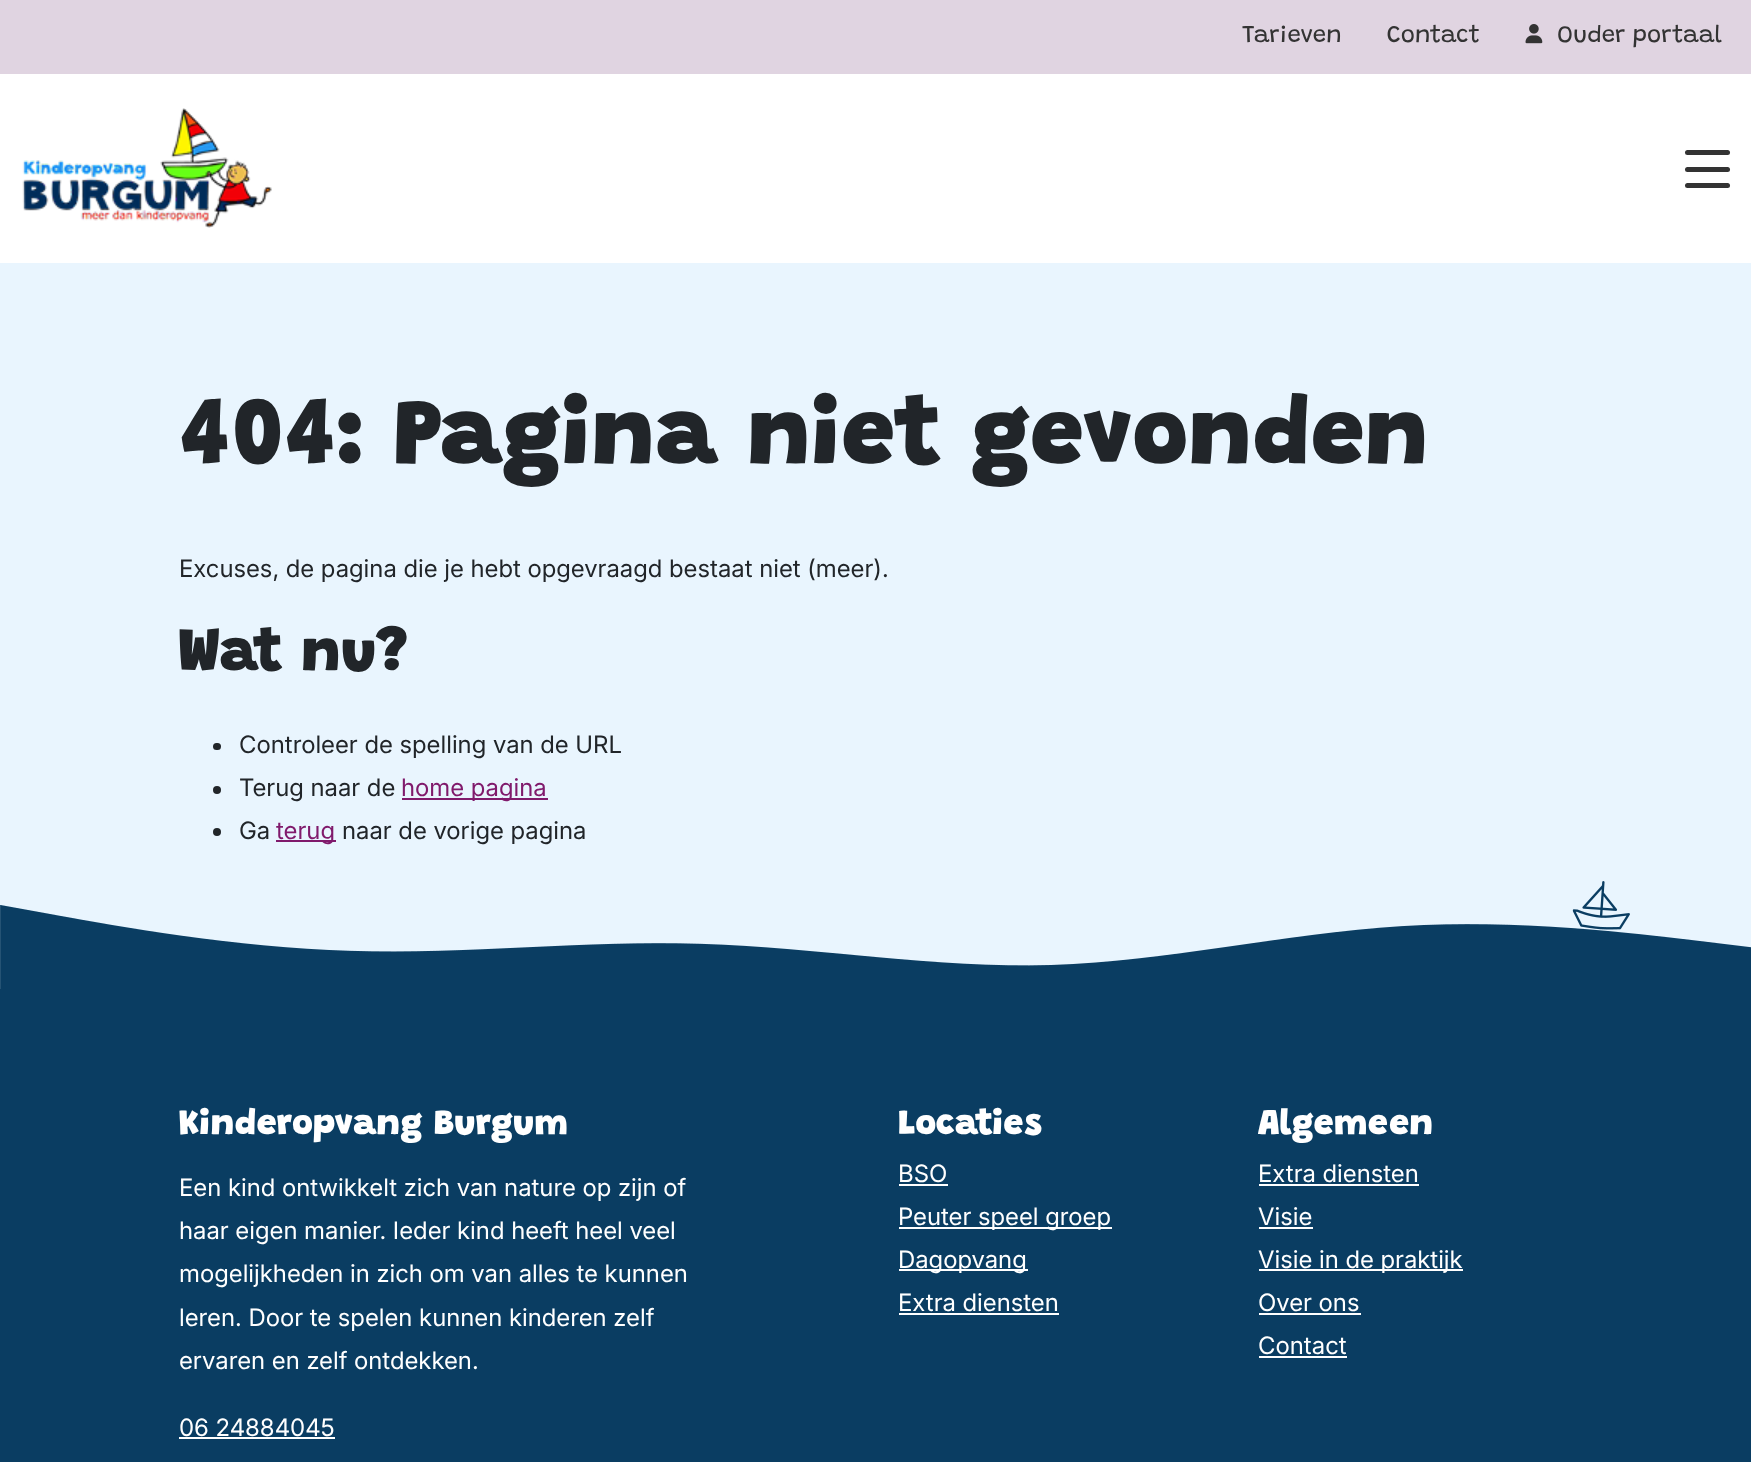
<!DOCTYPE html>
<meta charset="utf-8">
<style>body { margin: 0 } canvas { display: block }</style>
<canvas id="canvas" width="1751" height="1462"></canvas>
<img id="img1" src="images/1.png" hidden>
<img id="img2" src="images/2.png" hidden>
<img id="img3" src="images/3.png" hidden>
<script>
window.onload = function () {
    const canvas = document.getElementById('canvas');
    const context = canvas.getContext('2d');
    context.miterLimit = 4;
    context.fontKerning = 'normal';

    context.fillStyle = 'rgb(233, 245, 254)';
    context.fillRect(0, 0, 1751, 1462);
    context.fillStyle = 'rgb(224, 212, 225)';
    context.fillRect(0, 0, 1751, 74);
    context.drawImage(document.getElementById('img1'), 1525, 24, 18, 20);
    context.fillStyle = 'rgb(255, 255, 255)';
    context.fillRect(0, 74, 1751, 189);
    context.drawImage(document.getElementById('img2'), 22, 108, 250, 120);
    context.fillStyle = 'rgb(51, 51, 51)';
    context.beginPath();
    context.roundRect(1685, 150, 45, 5, 2.5);
    context.fill();
    context.beginPath();
    context.roundRect(1685, 167, 45, 5, 2.5);
    context.fill();
    context.beginPath();
    context.roundRect(1685, 183, 45, 5, 2.5);
    context.fill();
    context.fillStyle = 'rgb(33, 37, 41)';
    context.beginPath();
    context.roundRect(213, 743, 8, 7, 3.5);
    context.fill();
    context.beginPath();
    context.arc(217, 790, 4, 0, 2 * Math.PI);
    context.fill();
    context.fillStyle = 'rgb(128, 26, 108)';
    context.fillRect(402, 798, 146, 2);
    context.fillStyle = 'rgb(33, 37, 41)';
    context.beginPath();
    context.arc(217, 832, 4, 0, 2 * Math.PI);
    context.fill();
    context.fillStyle = 'rgb(128, 26, 108)';
    context.fillRect(276, 840, 60, 2);
    context.fillStyle = 'rgb(10, 61, 98)';
    context.fillRect(0, 989, 1751, 473);
    context.drawImage(document.getElementById('img3'), 0, 881, 1751, 108);
    context.fillStyle = 'rgb(255, 255, 255)';
    context.fillRect(179, 1437, 156, 2);
    context.fillRect(899, 1184, 49, 2);
    context.fillRect(899, 1227, 213, 2);
    context.fillRect(899, 1269, 129, 2);
    context.fillRect(899, 1313, 160, 2);
    context.fillRect(1259, 1184, 160, 2);
    context.fillRect(1259, 1227, 54, 2);
    context.fillRect(1259, 1269, 204, 2);
    context.fillRect(1259, 1313, 102, 2);
    context.fillRect(1259, 1356, 88, 2);
    context.font = '24px Grandstander';
    context.fillStyle = 'rgb(51, 51, 51)';
    context.fillText('Tarieven', 1242, 42);
    context.fillText('Contact', 1387, 42);
    context.fillText('Ouder portaal', 1557, 42);
    context.font = '900 96px Grandstander';
    context.fillStyle = 'rgb(33, 37, 41)';
    context.fillText('404: Pagina niet gevonden', 179, 463);
    context.font = '24px Inter';
    context.fillText('Excuses, de pagina die je hebt opgevraagd bestaat niet (meer).', 179, 577);
    context.font = '900 60px Grandstander';
    context.fillText('Wat nu?', 179, 670);
    context.font = '24px Inter';
    context.fillText('Controleer de spelling van de URL', 239, 753);
    context.fillText('Terug naar de', 239, 796);
    context.fillStyle = 'rgb(128, 26, 108)';
    context.fillText('home pagina', 401, 796);
    context.fillStyle = 'rgb(33, 37, 41)';
    context.fillText('Ga', 239, 839);
    context.fillStyle = 'rgb(128, 26, 108)';
    context.fillText('terug', 276, 839);
    context.fillStyle = 'rgb(33, 37, 41)';
    context.fillText('naar de vorige pagina', 342, 839);
    context.font = '900 36px Grandstander';
    context.fillStyle = 'rgb(255, 255, 255)';
    context.fillText('Kinderopvang Burgum', 179, 1134);
    context.font = '24px Inter';
    context.fillText('Een kind ontwikkelt zich van nature op zijn of', 179, 1196);
    context.fillText('haar eigen manier. Ieder kind heeft heel veel', 179, 1239);
    context.fillText('mogelijkheden in zich om van alles te kunnen', 179, 1282);
    context.fillText('leren. Door te spelen kunnen kinderen zelf', 179, 1326);
    context.fillText('ervaren en zelf ontdekken.', 179, 1369);
    context.fillText('06 24884045', 179, 1436);
    context.font = '900 36px Grandstander';
    context.fillText('Locaties', 898, 1134);
    context.font = '24px Inter';
    context.fillText('BSO', 898, 1182);
    context.fillText('Peuter speel groep', 898, 1225);
    context.fillText('Dagopvang', 898, 1268);
    context.fillText('Extra diensten', 898, 1311);
    context.font = '900 36px Grandstander';
    context.fillText('Algemeen', 1258, 1134);
    context.font = '24px Inter';
    context.fillText('Extra diensten', 1258, 1182);
    context.fillText('Visie', 1258, 1225);
    context.fillText('Visie in de praktijk', 1258, 1268);
    context.fillText('Over ons', 1258, 1311);
    context.fillText('Contact', 1258, 1354);
};
</script>
